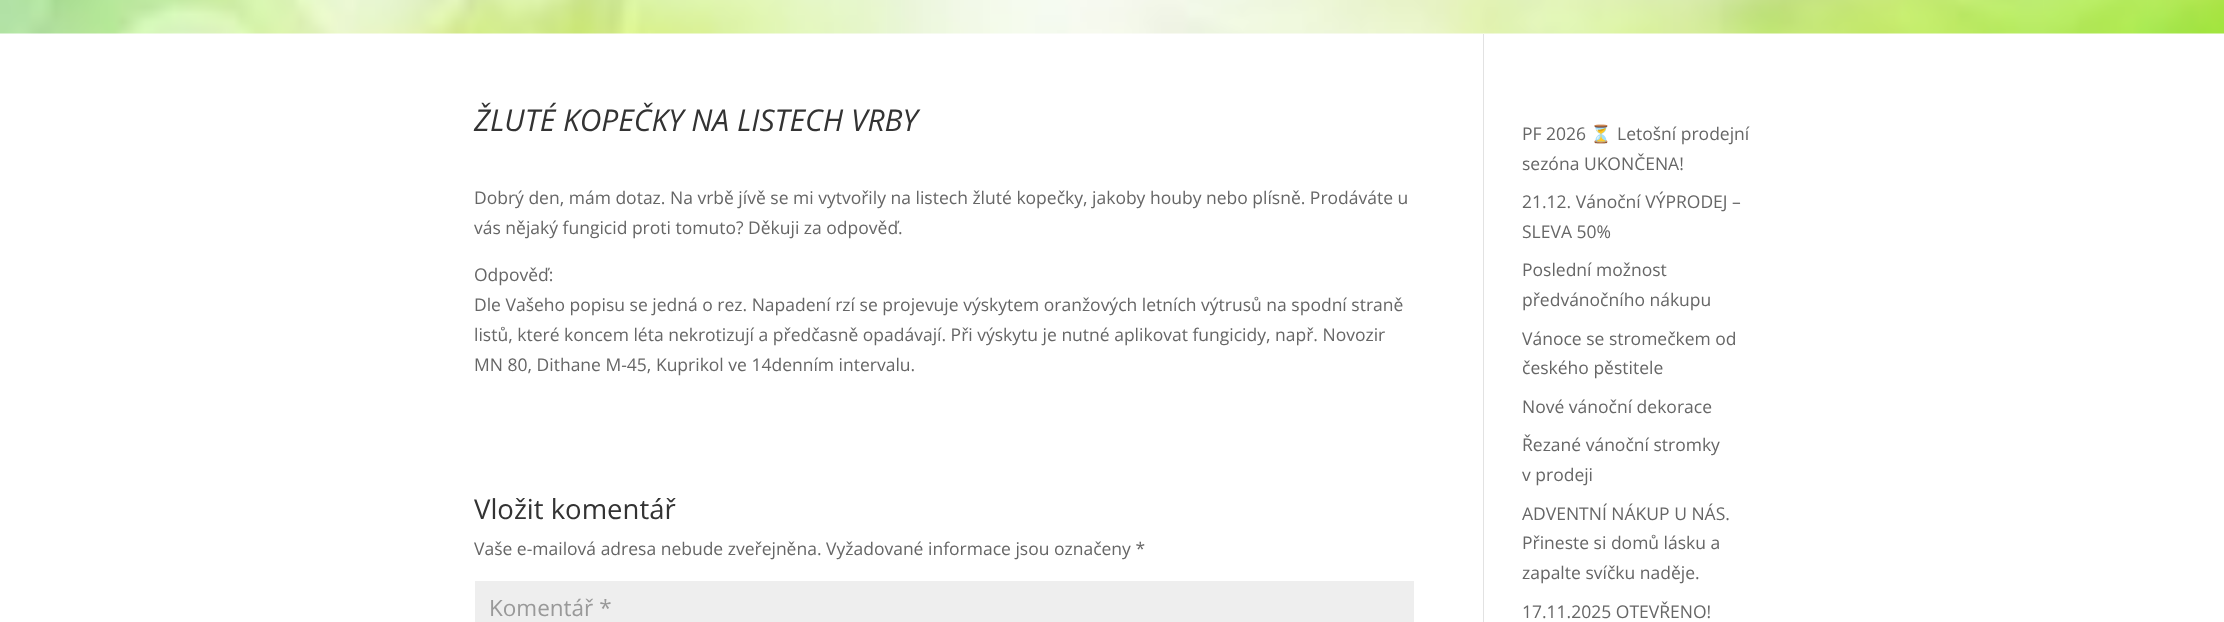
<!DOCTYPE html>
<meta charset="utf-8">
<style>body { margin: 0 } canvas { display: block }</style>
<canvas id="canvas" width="2224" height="622"></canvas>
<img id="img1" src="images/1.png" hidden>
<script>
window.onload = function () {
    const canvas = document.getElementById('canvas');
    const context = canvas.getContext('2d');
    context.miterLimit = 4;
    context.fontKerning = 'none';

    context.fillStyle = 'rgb(255, 255, 255)';
    context.fillRect(0, 0, 2224, 622);
    context.drawImage(document.getElementById('img1'), 0, 0, 2224, 34);
    context.fillStyle = 'rgb(226, 226, 226)';
    context.fillRect(1483, 34, 1, 588);
    context.fillStyle = 'rgb(238, 238, 238)';
    context.fillRect(475, 581, 939, 41);
    context.font = 'italic 30px Open Sans';
    context.fillStyle = 'rgb(51, 51, 51)';
    context.fillText('ŽLUTÉ KOPEČKY NA LISTECH VRBY', 474, 131);
    context.font = '17.5px Open Sans';
    context.fillStyle = 'rgb(102, 102, 102)';
    context.fillText('Dobrý den, mám dotaz. Na vrbě jívě se mi vytvořily na listech žluté kopečky, jakoby houby nebo plísně. Prodáváte u', 474, 204);
    context.fillText('vás nějaký fungicid proti tomuto? Děkuji za odpověď.', 474, 234);
    context.fillText('Odpověď:', 474, 281);
    context.fillText('Dle Vašeho popisu se jedná o rez. Napadení rzí se projevuje výskytem oranžových letních výtrusů na spodní straně', 474, 311);
    context.fillText('listů, které koncem léta nekrotizují a předčasně opadávají. Při výskytu je nutné aplikovat fungicidy, např. Novozir', 474, 341);
    context.fillText('MN 80, Dithane M-45, Kuprikol ve 14denním intervalu.', 474, 371);
    context.font = '27.5px Open Sans';
    context.fillStyle = 'rgb(51, 51, 51)';
    context.fillText('Vložit komentář', 474, 519);
    context.font = '17.5px Open Sans';
    context.fillStyle = 'rgb(102, 102, 102)';
    context.fillText('Vaše e-mailová adresa nebude zveřejněna. Vyžadované informace jsou označeny *', 474, 555);
    context.font = '22.5px Open Sans';
    context.fillStyle = 'rgb(153, 153, 153)';
    context.fillText('Komentář *', 489, 616);
    context.font = '17.5px Open Sans';
    context.fillStyle = 'rgb(102, 102, 102)';
    context.fillText('PF 2026', 1522, 140);
    context.font = '17.5px Noto Color Emoji';
    context.fillText('⏳', 1590, 140);
    context.font = '17.5px Open Sans';
    context.fillText('Letošní prodejní', 1617, 140);
    context.fillText('sezóna UKONČENA!', 1522, 170);
    context.fillText('21.12. Vánoční VÝPRODEJ –', 1522, 208);
    context.fillText('SLEVA 50%', 1522, 238);
    context.fillText('Poslední možnost', 1522, 276);
    context.fillText('předvánočního nákupu', 1522, 306);
    context.fillText('Vánoce se stromečkem od', 1522, 345);
    context.fillText('českého pěstitele', 1522, 374);
    context.fillText('Nové vánoční dekorace', 1522, 413);
    context.fillText('Řezané vánoční stromky', 1522, 451);
    context.fillText('v prodeji', 1522, 481);
    context.fillText('ADVENTNÍ NÁKUP U NÁS.', 1522, 520);
    context.fillText('Přineste si domů lásku a', 1522, 549);
    context.fillText('zapalte svíčku naděje.', 1522, 579);
    context.fillText('17.11.2025 OTEVŘENO!', 1522, 618);
};
</script>
